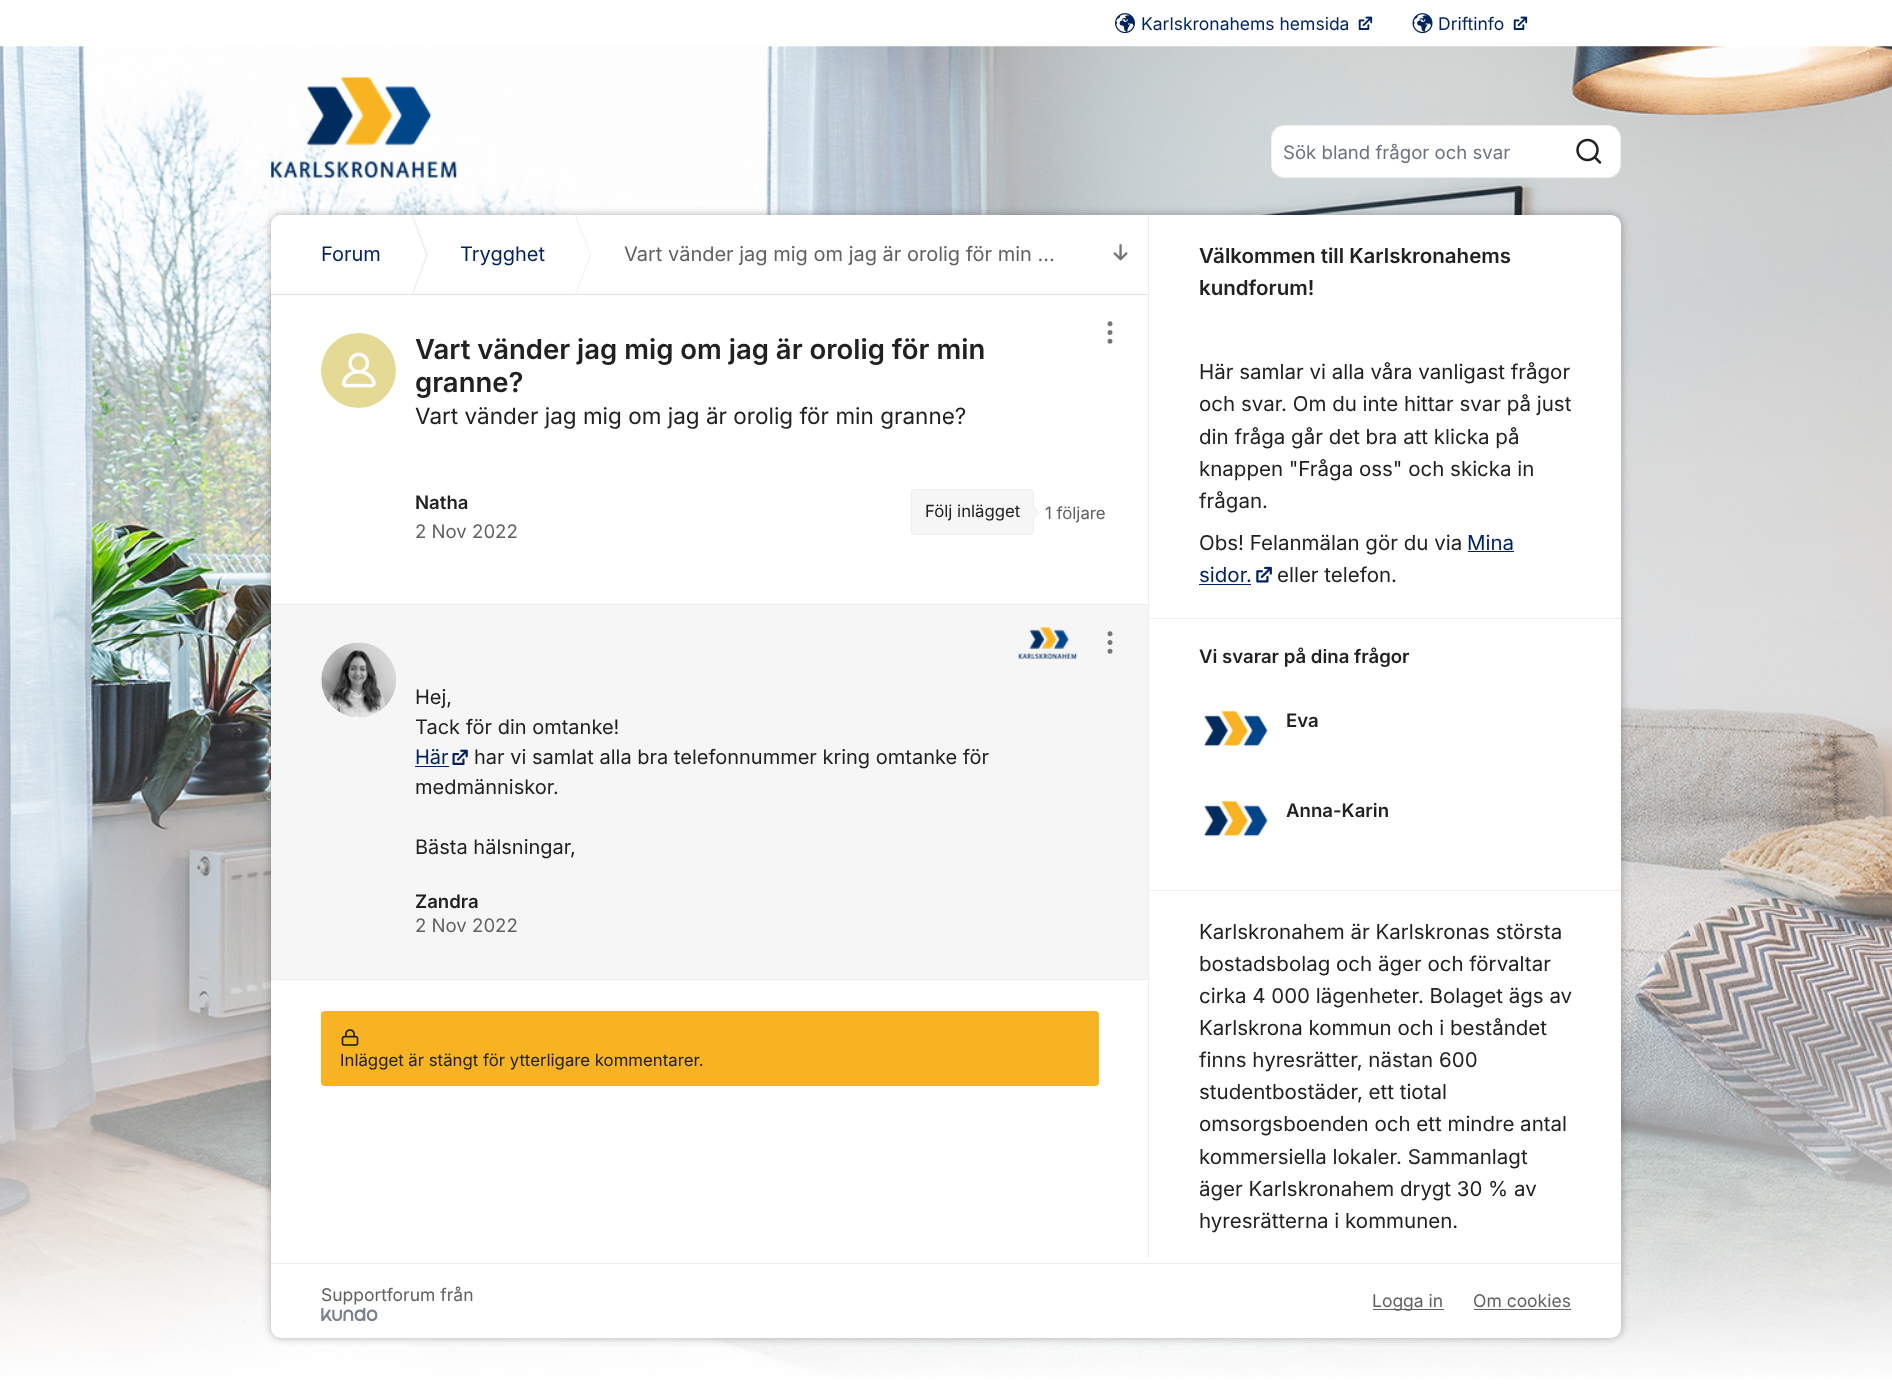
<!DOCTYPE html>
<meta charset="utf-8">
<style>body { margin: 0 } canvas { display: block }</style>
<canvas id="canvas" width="1892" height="1386"></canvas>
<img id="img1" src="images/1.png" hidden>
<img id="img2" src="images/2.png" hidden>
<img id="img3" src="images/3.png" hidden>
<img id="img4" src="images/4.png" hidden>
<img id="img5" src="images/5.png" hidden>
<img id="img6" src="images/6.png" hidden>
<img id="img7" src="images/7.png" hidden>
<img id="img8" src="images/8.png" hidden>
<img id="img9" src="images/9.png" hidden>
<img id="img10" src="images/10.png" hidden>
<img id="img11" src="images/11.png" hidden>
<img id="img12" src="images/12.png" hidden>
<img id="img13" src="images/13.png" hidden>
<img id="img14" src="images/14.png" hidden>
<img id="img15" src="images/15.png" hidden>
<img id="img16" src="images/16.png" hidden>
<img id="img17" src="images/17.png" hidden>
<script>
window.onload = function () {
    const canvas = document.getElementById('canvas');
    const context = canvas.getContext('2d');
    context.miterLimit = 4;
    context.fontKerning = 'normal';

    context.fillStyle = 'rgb(255, 255, 255)';
    context.fillRect(0, 0, 1892, 1386);
    context.drawImage(document.getElementById('img1'), 0, 46, 1892, 1331);
    context.drawImage(document.getElementById('img2'), 1115, 13, 20, 21);
    context.drawImage(document.getElementById('img3'), 1358, 16, 15, 14);
    context.drawImage(document.getElementById('img4'), 1412, 13, 21, 21);
    context.drawImage(document.getElementById('img3'), 1513, 16, 15, 14);
    context.drawImage(document.getElementById('img5'), 271, 77, 186, 101);
    context.beginPath();
    context.roundRect(1271.5, 125.5, 349, 52, 12.5);
    context.fill();
    context.strokeStyle = 'rgb(238, 238, 238)';
    context.stroke();
    context.drawImage(document.getElementById('img6'), 1576, 138, 26, 26);
    context.fillStyle = 'rgba(0, 0, 0, 0.3)';
    context.filter = 'blur(4px)';
    context.beginPath();
    context.roundRect(271, 215, 1350, 1123, 10);
    context.fill();
    context.filter = 'none';
    context.fillStyle = 'rgb(255, 255, 255)';
    context.beginPath();
    context.roundRect(271, 215, 1350, 1048, [10, 10, 0, 0]);
    context.fill();
    context.beginPath();
    context.roundRect(271, 215, 878, 1048, 10);
    context.fill();
    context.fillStyle = 'rgb(224, 224, 224)';
    context.fillRect(271, 294, 878, 1);
    context.save();
    context.beginPath();
    context.rect(271, 215, 878, 79);
    context.clip();
    context.fillStyle = 'rgb(238, 238, 238)';
    context.beginPath();
    context.moveTo(409, 305);
    context.lineTo(409, 205);
    context.lineTo(428, 255);
    context.closePath();
    context.fill();
    context.fillStyle = 'rgb(255, 255, 255)';
    context.beginPath();
    context.moveTo(408, 305);
    context.lineTo(408, 205);
    context.lineTo(426, 255);
    context.closePath();
    context.fill();
    context.fillStyle = 'rgb(238, 238, 238)';
    context.beginPath();
    context.moveTo(572, 305);
    context.lineTo(572, 205);
    context.lineTo(591, 255);
    context.closePath();
    context.fill();
    context.fillStyle = 'rgb(255, 255, 255)';
    context.beginPath();
    context.moveTo(571, 305);
    context.lineTo(571, 205);
    context.lineTo(590, 255);
    context.closePath();
    context.fill();
    context.restore();
    context.drawImage(document.getElementById('img7'), 1113, 244, 15, 17);
    context.drawImage(document.getElementById('img8'), 1107, 321, 6, 23);
    context.fillStyle = 'rgb(228, 217, 149)';
    context.beginPath();
    context.arc(358.5, 370.5, 37.5, 0, 2 * Math.PI);
    context.fill();
    context.drawImage(document.getElementById('img9'), 341, 352, 35, 36);
    context.fillStyle = 'rgb(246, 246, 246)';
    context.beginPath();
    context.roundRect(911.5, 489.5, 122, 45, 3.5);
    context.fill();
    context.stroke();
    context.fillStyle = 'rgb(238, 238, 238)';
    context.beginPath();
    context.moveTo(1032.5, 520);
    context.lineTo(1032.5, 505);
    context.lineTo(1040, 512.5);
    context.closePath();
    context.fill();
    context.fillStyle = 'rgb(246, 246, 246)';
    context.beginPath();
    context.moveTo(1031, 520);
    context.lineTo(1031, 505);
    context.lineTo(1039, 512.5);
    context.closePath();
    context.fill();
    context.fillRect(271, 605, 877, 374);
    context.fillStyle = 'rgb(238, 238, 238)';
    context.fillRect(271, 604, 878, 1);
    context.drawImage(document.getElementById('img10'), 1018, 627, 59, 32);
    context.fillStyle = 'rgb(0, 34, 94)';
    context.fillRect(415, 766, 34, 1);
    context.drawImage(document.getElementById('img11'), 452, 749, 16, 16);
    context.drawImage(document.getElementById('img12'), 321, 642, 75, 76);
    context.drawImage(document.getElementById('img13'), 1107, 631, 6, 23);
    context.fillStyle = 'rgb(238, 238, 238)';
    context.fillRect(271, 979, 878, 1);
    context.fillStyle = 'rgb(248, 179, 34)';
    context.beginPath();
    context.roundRect(321, 1011, 778, 75, 4);
    context.fill();
    context.drawImage(document.getElementById('img14'), 341, 1029, 18, 17);
    context.fillStyle = 'rgb(238, 238, 238)';
    context.fillRect(1148, 215, 1, 1043);
    context.fillRect(1149, 618, 472, 1);
    context.fillStyle = 'rgb(0, 34, 94)';
    context.fillRect(1468, 551, 46, 1);
    context.fillRect(1199, 584, 52, 1);
    context.drawImage(document.getElementById('img15'), 1256, 566, 16, 17);
    context.fillStyle = 'rgb(238, 238, 238)';
    context.fillRect(1149, 890, 472, 1);
    context.drawImage(document.getElementById('img16'), 1203, 710, 65, 37);
    context.drawImage(document.getElementById('img16'), 1203, 800, 65, 37);
    context.fillStyle = 'rgb(255, 255, 255)';
    context.beginPath();
    context.roundRect(271, 1264, 1350, 74, [0, 0, 10, 10]);
    context.fill();
    context.fillStyle = 'rgb(238, 238, 238)';
    context.fillRect(271, 1263, 1350, 1);
    context.drawImage(document.getElementById('img17'), 321, 1308, 57, 13);
    context.fillStyle = 'rgb(97, 97, 97)';
    context.fillRect(1373, 1309, 71, 1);
    context.fillRect(1474, 1309, 97, 1);
    context.font = '17.5px Inter';
    context.fillStyle = 'rgb(0, 34, 94)';
    context.fillText('Karlskronahems hemsida', 1141, 30);
    context.fillText('Driftinfo', 1438, 30);
    context.font = '18.6px Inter';
    context.fillStyle = 'rgb(107, 114, 128)';
    context.fillText('Sök bland frågor och svar', 1283, 159);
    context.font = '20px Inter';
    context.fillStyle = 'rgb(0, 34, 94)';
    context.fillText('Forum', 321, 261);
    context.fillText('Trygghet', 460, 261);
    context.fillStyle = 'rgb(97, 97, 97)';
    context.fillText('Vart vänder jag mig om jag är orolig för min …', 624, 261);
    context.font = '600 27.5px Inter';
    context.fillStyle = 'rgb(33, 33, 33)';
    context.fillText('Vart vänder jag mig om jag är orolig för min', 415, 359);
    context.fillText('granne?', 415, 392);
    context.font = '22.5px Inter';
    context.fillText('Vart vänder jag mig om jag är orolig för min granne?', 415, 424);
    context.font = '600 18.6px Inter';
    context.fillText('Natha', 415, 509);
    context.font = '18.6px Inter';
    context.fillStyle = 'rgb(97, 97, 97)';
    context.fillText('2 Nov 2022', 415, 538);
    context.font = '16.75px Inter';
    context.fillStyle = 'rgb(33, 33, 33)';
    context.fillText('Följ inlägget', 925, 517);
    context.fillStyle = 'rgb(97, 97, 97)';
    context.fillText('1 följare', 1045, 519);
    context.font = '20px Inter';
    context.fillStyle = 'rgb(33, 33, 33)';
    context.fillText('Hej,', 415, 704);
    context.fillText('Tack för din omtanke!', 415, 734);
    context.fillStyle = 'rgb(0, 34, 94)';
    context.fillText('Här', 415, 764);
    context.fillStyle = 'rgb(33, 33, 33)';
    context.fillText('har vi samlat alla bra telefonnummer kring omtanke för', 474, 764);
    context.fillText('medmänniskor.', 415, 794);
    context.fillText('Bästa hälsningar,', 415, 854);
    context.font = '600 18.6px Inter';
    context.fillText('Zandra', 415, 908);
    context.font = '18.6px Inter';
    context.fillStyle = 'rgb(97, 97, 97)';
    context.fillText('2 Nov 2022', 415, 932);
    context.font = '16.75px Inter';
    context.fillStyle = 'rgb(33, 33, 33)';
    context.fillText('Inlägget är stängt för ytterligare kommentarer.', 340, 1066);
    context.font = '600 20.5px Inter';
    context.fillText('Välkommen till Karlskronahems', 1199, 263);
    context.fillText('kundforum!', 1199, 295);
    context.font = '20.5px Inter';
    context.fillText('Här samlar vi alla våra vanligast frågor', 1199, 379);
    context.fillText('och svar. Om du inte hittar svar på just', 1199, 411);
    context.fillText('din fråga går det bra att klicka på', 1199, 444);
    context.fillText('knappen "Fråga oss" och skicka in', 1199, 476);
    context.fillText('frågan.', 1199, 508);
    context.fillText('Obs! Felanmälan gör du via', 1199, 550);
    context.fillStyle = 'rgb(0, 34, 94)';
    context.fillText('Mina', 1467, 550);
    context.fillText('sidor.', 1199, 582);
    context.fillStyle = 'rgb(33, 33, 33)';
    context.fillText('eller telefon.', 1277, 582);
    context.font = '600 18.6px Inter';
    context.fillText('Vi svarar på dina frågor', 1199, 663);
    context.fillText('Eva', 1286, 727);
    context.fillText('Anna-Karin', 1286, 817);
    context.font = '20.5px Inter';
    context.fillText('Karlskronahem är Karlskronas största', 1199, 939);
    context.fillText('bostadsbolag och äger och förvaltar', 1199, 971);
    context.fillText('cirka 4 000 lägenheter. Bolaget ägs av', 1199, 1003);
    context.fillText('Karlskrona kommun och i beståndet', 1199, 1035);
    context.fillText('finns hyresrätter, nästan 600', 1199, 1067);
    context.fillText('studentbostäder, ett tiotal', 1199, 1099);
    context.fillText('omsorgsboenden och ett mindre antal', 1199, 1131);
    context.fillText('kommersiella lokaler. Sammanlagt', 1199, 1164);
    context.fillText('äger Karlskronahem drygt 30 % av', 1199, 1196);
    context.fillText('hyresrätterna i kommunen.', 1199, 1228);
    context.font = '17.5px Inter';
    context.fillStyle = 'rgb(97, 97, 97)';
    context.fillText('Supportforum från', 321, 1301);
    context.fillText('Logga in', 1372, 1307);
    context.fillText('Om cookies', 1473, 1307);
};
</script>
